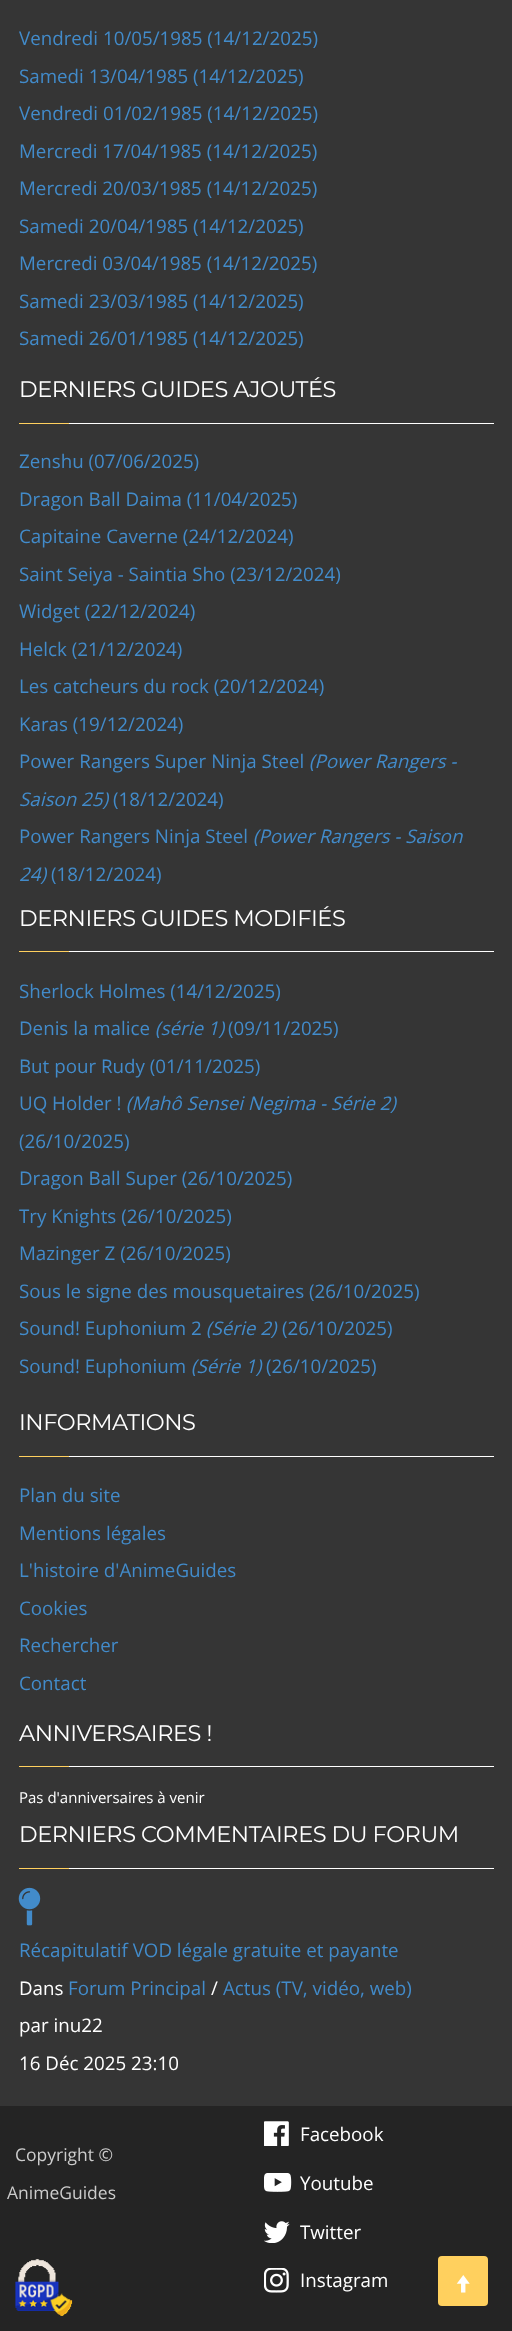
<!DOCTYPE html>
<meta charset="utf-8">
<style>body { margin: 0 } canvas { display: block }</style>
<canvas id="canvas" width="512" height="2331"></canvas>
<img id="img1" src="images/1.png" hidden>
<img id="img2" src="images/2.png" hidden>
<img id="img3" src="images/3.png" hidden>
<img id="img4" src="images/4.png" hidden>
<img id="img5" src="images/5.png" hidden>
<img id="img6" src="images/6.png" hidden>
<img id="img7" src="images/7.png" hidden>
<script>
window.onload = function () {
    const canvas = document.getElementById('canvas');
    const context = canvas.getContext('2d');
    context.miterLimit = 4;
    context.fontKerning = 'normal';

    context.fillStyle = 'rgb(53, 53, 53)';
    context.fillRect(0, 0, 512, 2331);
    context.fillStyle = 'rgb(255, 255, 255)';
    context.fillRect(69, 423, 425, 1);
    context.fillStyle = 'rgb(255, 208, 94)';
    context.fillRect(19, 423, 50, 1);
    context.fillStyle = 'rgb(255, 255, 255)';
    context.fillRect(69, 951, 425, 1);
    context.fillStyle = 'rgb(255, 208, 94)';
    context.fillRect(19, 951, 50, 1);
    context.fillStyle = 'rgb(255, 255, 255)';
    context.fillRect(69, 1456, 425, 1);
    context.fillStyle = 'rgb(255, 208, 94)';
    context.fillRect(19, 1456, 50, 1);
    context.fillStyle = 'rgb(255, 255, 255)';
    context.fillRect(69, 1766, 425, 1);
    context.fillStyle = 'rgb(255, 208, 94)';
    context.fillRect(19, 1766, 50, 1);
    context.fillStyle = 'rgb(255, 255, 255)';
    context.fillRect(69, 1868, 425, 1);
    context.fillStyle = 'rgb(255, 208, 94)';
    context.fillRect(19, 1868, 50, 1);
    context.drawImage(document.getElementById('img1'), 18, 1887, 23, 39);
    context.fillStyle = 'rgb(36, 36, 36)';
    context.fillRect(0, 2106, 512, 225);
    context.drawImage(document.getElementById('img2'), 264, 2121, 25, 25);
    context.drawImage(document.getElementById('img3'), 264, 2173, 28, 19);
    context.drawImage(document.getElementById('img4'), 264, 2221, 26, 22);
    context.drawImage(document.getElementById('img5'), 264, 2268, 25, 25);
    context.fillStyle = 'rgb(255, 208, 94)';
    context.beginPath();
    context.roundRect(438, 2256, 50, 50, 4);
    context.fill();
    context.drawImage(document.getElementById('img6'), 456, 2275, 14, 18);
    context.drawImage(document.getElementById('img7'), 15, 2259, 58, 57);
    context.font = '18.75px Open Sans';
    context.fillStyle = 'rgb(66, 139, 202)';
    context.fillText('Vendredi 10/05/1985 (14/12/2025)', 19, 45);
    context.fillText('Samedi 13/04/1985 (14/12/2025)', 19, 83);
    context.fillText('Vendredi 01/02/1985 (14/12/2025)', 19, 120);
    context.fillText('Mercredi 17/04/1985 (14/12/2025)', 19, 158);
    context.fillText('Mercredi 20/03/1985 (14/12/2025)', 19, 195);
    context.fillText('Samedi 20/04/1985 (14/12/2025)', 19, 233);
    context.fillText('Mercredi 03/04/1985 (14/12/2025)', 19, 270);
    context.fillText('Samedi 23/03/1985 (14/12/2025)', 19, 308);
    context.fillText('Samedi 26/01/1985 (14/12/2025)', 19, 345);
    context.letterSpacing = '-0.45px';
    context.font = '22.5px Montserrat';
    context.fillStyle = 'rgb(255, 255, 255)';
    context.fillText('DERNIERS GUIDES AJOUTÉS', 19, 397);
    context.letterSpacing = '0px';
    context.font = '18.75px Open Sans';
    context.fillStyle = 'rgb(66, 139, 202)';
    context.fillText('Zenshu (07/06/2025)', 19, 468);
    context.fillText('Dragon Ball Daima (11/04/2025)', 19, 506);
    context.fillText('Capitaine Caverne (24/12/2024)', 19, 543);
    context.fillText('Saint Seiya - Saintia Sho (23/12/2024)', 19, 581);
    context.fillText('Widget (22/12/2024)', 19, 618);
    context.fillText('Helck (21/12/2024)', 19, 656);
    context.fillText('Les catcheurs du rock (20/12/2024)', 19, 693);
    context.fillText('Karas (19/12/2024)', 19, 731);
    context.fillText('Power Rangers Super Ninja Steel', 19, 768);
    context.font = 'italic 18.75px Open Sans';
    context.fillText('(Power Rangers -', 309, 768);
    context.fillText('Saison 25)', 19, 806);
    context.font = '18.75px Open Sans';
    context.fillText('(18/12/2024)', 113, 806);
    context.fillText('Power Rangers Ninja Steel', 19, 843);
    context.font = 'italic 18.75px Open Sans';
    context.fillText('(Power Rangers - Saison', 253, 843);
    context.fillText('24)', 19, 881);
    context.font = '18.75px Open Sans';
    context.fillText('(18/12/2024)', 51, 881);
    context.letterSpacing = '-0.45px';
    context.font = '22.5px Montserrat';
    context.fillStyle = 'rgb(255, 255, 255)';
    context.fillText('DERNIERS GUIDES MODIFIÉS', 19, 926);
    context.letterSpacing = '0px';
    context.font = '18.75px Open Sans';
    context.fillStyle = 'rgb(66, 139, 202)';
    context.fillText('Sherlock Holmes (14/12/2025)', 19, 998);
    context.fillText('Denis la malice', 19, 1035);
    context.font = 'italic 18.75px Open Sans';
    context.fillText('(série 1)', 155, 1035);
    context.font = '18.75px Open Sans';
    context.fillText('(09/11/2025)', 228, 1035);
    context.fillText('But pour Rudy (01/11/2025)', 19, 1073);
    context.fillText('UQ Holder !', 19, 1110);
    context.font = 'italic 18.75px Open Sans';
    context.fillText('(Mahô Sensei Negima - Série 2)', 126, 1110);
    context.font = '18.75px Open Sans';
    context.fillText('(26/10/2025)', 19, 1148);
    context.fillText('Dragon Ball Super (26/10/2025)', 19, 1185);
    context.fillText('Try Knights (26/10/2025)', 19, 1223);
    context.fillText('Mazinger Z (26/10/2025)', 19, 1260);
    context.fillText('Sous le signe des mousquetaires (26/10/2025)', 19, 1298);
    context.fillText('Sound! Euphonium 2', 19, 1335);
    context.font = 'italic 18.75px Open Sans';
    context.fillText('(Série 2)', 206, 1335);
    context.font = '18.75px Open Sans';
    context.fillText('(26/10/2025)', 282, 1335);
    context.fillText('Sound! Euphonium', 19, 1373);
    context.font = 'italic 18.75px Open Sans';
    context.fillText('(Série 1)', 191, 1373);
    context.font = '18.75px Open Sans';
    context.fillText('(26/10/2025)', 266, 1373);
    context.letterSpacing = '-0.45px';
    context.font = '22.5px Montserrat';
    context.fillStyle = 'rgb(255, 255, 255)';
    context.fillText('INFORMATIONS', 19, 1430);
    context.letterSpacing = '0px';
    context.font = '18.75px Open Sans';
    context.fillStyle = 'rgb(66, 139, 202)';
    context.fillText('Plan du site', 19, 1502);
    context.fillText('Mentions légales', 19, 1540);
    context.fillText('L\'histoire d\'AnimeGuides', 19, 1577);
    context.fillText('Cookies', 19, 1615);
    context.fillText('Rechercher', 19, 1652);
    context.fillText('Contact', 19, 1690);
    context.letterSpacing = '-0.45px';
    context.font = '22.5px Montserrat';
    context.fillStyle = 'rgb(255, 255, 255)';
    context.fillText('ANNIVERSAIRES !', 19, 1741);
    context.letterSpacing = '0px';
    context.font = '15px Open Sans';
    context.fillText('Pas d\'anniversaires à venir', 19, 1803);
    context.letterSpacing = '-0.45px';
    context.font = '22.5px Montserrat';
    context.fillText('DERNIERS COMMENTAIRES DU FORUM', 19, 1842);
    context.letterSpacing = '0px';
    context.font = '18.75px Open Sans';
    context.fillStyle = 'rgb(66, 139, 202)';
    context.fillText('Récapitulatif VOD légale gratuite et payante', 19, 1957);
    context.fillStyle = 'rgb(255, 255, 255)';
    context.fillText('Dans', 19, 1995);
    context.fillStyle = 'rgb(66, 139, 202)';
    context.fillText('Forum Principal', 68, 1995);
    context.fillStyle = 'rgb(255, 255, 255)';
    context.fillText('/', 211, 1995);
    context.fillStyle = 'rgb(66, 139, 202)';
    context.fillText('Actus (TV, vidéo, web)', 223, 1995);
    context.fillStyle = 'rgb(255, 255, 255)';
    context.fillText('par inu22', 19, 2032);
    context.fillText('16 Déc 2025 23:10', 19, 2070);
    context.font = '17.5px Open Sans';
    context.fillStyle = 'rgb(204, 204, 204)';
    context.fillText('Copyright ©', 15, 2161);
    context.fillText('AnimeGuides', 7, 2199);
    context.font = '18.75px Open Sans';
    context.fillStyle = 'rgb(255, 255, 255)';
    context.fillText('Facebook', 300, 2141);
    context.fillText('Youtube', 300, 2190);
    context.fillText('Twitter', 300, 2239);
    context.fillText('Instagram', 300, 2287);
};
</script>
